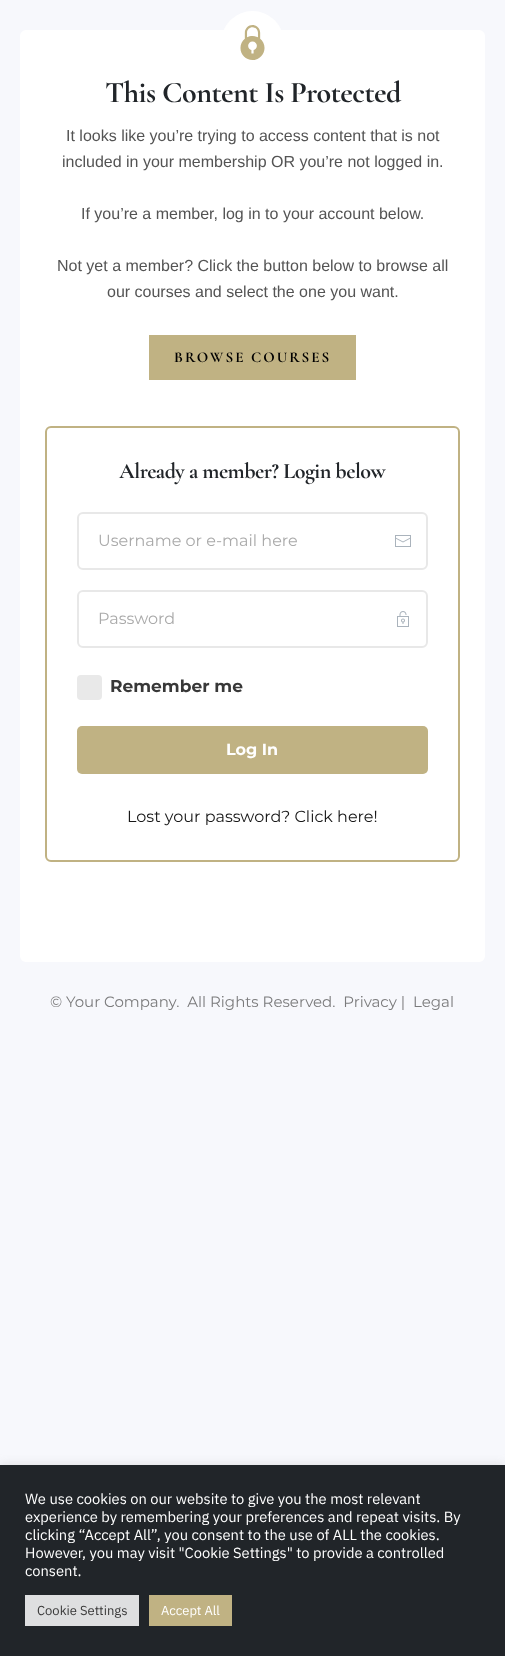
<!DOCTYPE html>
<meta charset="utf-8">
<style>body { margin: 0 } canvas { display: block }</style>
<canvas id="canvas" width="505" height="1656"></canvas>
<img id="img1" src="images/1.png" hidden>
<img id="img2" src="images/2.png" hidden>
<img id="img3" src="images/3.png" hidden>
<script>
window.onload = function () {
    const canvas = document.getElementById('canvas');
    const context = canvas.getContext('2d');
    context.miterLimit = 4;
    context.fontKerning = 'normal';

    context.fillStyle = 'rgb(247, 248, 252)';
    context.fillRect(0, 0, 505, 1656);
    context.fillStyle = 'rgb(255, 255, 255)';
    context.beginPath();
    context.roundRect(20, 30, 465, 932, 6);
    context.fill();
    context.beginPath();
    context.arc(252.5, 42.5, 31.5, 0, 2 * Math.PI);
    context.fill();
    context.drawImage(document.getElementById('img1'), 240, 25, 25, 35);
    context.fillStyle = 'rgb(192, 178, 131)';
    context.fillRect(149, 335, 207, 45);
    context.beginPath();
    context.roundRect(46, 427, 413, 434, 5);
    context.strokeStyle = 'rgb(192, 178, 131)';
    context.lineWidth = 2;
    context.stroke();
    context.beginPath();
    context.roundRect(78, 513, 349, 56, 5);
    context.strokeStyle = 'rgb(232, 232, 232)';
    context.stroke();
    context.drawImage(document.getElementById('img2'), 395, 535, 16, 12);
    context.beginPath();
    context.roundRect(78, 591, 349, 56, 5);
    context.stroke();
    context.drawImage(document.getElementById('img3'), 397, 611, 12, 16);
    context.fillStyle = 'rgb(233, 233, 233)';
    context.beginPath();
    context.roundRect(77, 675, 25, 25, 4);
    context.fill();
    context.fillStyle = 'rgb(192, 178, 131)';
    context.beginPath();
    context.roundRect(77, 726, 351, 48, 5);
    context.fill();
    context.fillStyle = 'rgba(172, 171, 171, 0.3)';
    context.filter = 'blur(5px)';
    context.beginPath();
    context.rect(0, 1464, 505, 191);
    context.fill();
    context.filter = 'none';
    context.fillStyle = 'rgb(33, 37, 41)';
    context.fillRect(0, 1465, 505, 191);
    context.fillStyle = 'rgb(222, 223, 224)';
    context.fillRect(25, 1595, 114, 31);
    context.fillStyle = 'rgb(192, 178, 131)';
    context.fillRect(149, 1595, 83, 31);
    context.letterSpacing = '-0.5px';
    context.font = 'bold 30px Cormorant Garamond';
    context.fillStyle = 'rgb(33, 37, 41)';
    context.fillText('This Content Is Protected', 105, 102);
    context.letterSpacing = '0px';
    context.font = '16px Liberation Sans';
    context.fillStyle = 'rgb(84, 84, 84)';
    context.fillText('It looks like you’re trying to access content that is not', 66, 141);
    context.fillText('included in your membership OR you’re not logged in.', 62, 167);
    context.fillText('If you’re a member, log in to your account below.', 81, 219);
    context.fillText('Not yet a member? Click the button below to browse all', 57, 271);
    context.fillText('our courses and select the one you want.', 107, 297);
    context.letterSpacing = '2px';
    context.font = 'bold 15px Cormorant Garamond';
    context.fillStyle = 'rgb(0, 0, 0)';
    context.fillText('BROWSE COURSES', 174, 362);
    context.letterSpacing = '-0.5px';
    context.font = 'bold 22px Cormorant Garamond';
    context.fillStyle = 'rgb(33, 37, 41)';
    context.fillText('Already a member? Login below', 119, 478);
    context.letterSpacing = '0px';
    context.font = '16px Montserrat';
    context.fillStyle = 'rgb(170, 170, 170)';
    context.fillText('Username or e-mail here', 98, 546);
    context.fillText('Password', 98, 624);
    context.font = 'bold 17px Montserrat';
    context.fillStyle = 'rgb(56, 56, 56)';
    context.fillText('Remember me', 110, 692);
    context.font = 'bold 16px Montserrat';
    context.fillStyle = 'rgb(255, 255, 255)';
    context.fillText('Log In', 226, 755);
    context.font = '16px Montserrat';
    context.fillStyle = 'rgb(24, 24, 24)';
    context.fillText('Lost your password? Click here!', 127, 822);
    context.font = '15px Montserrat';
    context.fillStyle = 'rgb(123, 123, 124)';
    context.fillText('© Your Company.  All Rights Reserved.  Privacy |  Legal', 50, 1007);
    context.font = '14.7px IBM Plex Sans';
    context.fillStyle = 'rgb(255, 255, 255)';
    context.fillText('We use cookies on our website to give you the most relevant', 25, 1504);
    context.fillText('experience by remembering your preferences and repeat visits. By', 25, 1522);
    context.fillText('clicking “Accept All”, you consent to the use of ALL the cookies.', 25, 1540);
    context.fillText('However, you may visit "Cookie Settings" to provide a controlled', 25, 1558);
    context.fillText('consent.', 25, 1576);
    context.font = '13px IBM Plex Sans';
    context.fillStyle = 'rgb(56, 56, 56)';
    context.fillText('Cookie Settings', 37, 1615);
    context.fillStyle = 'rgb(255, 255, 255)';
    context.fillText('Accept All', 161, 1615);
};
</script>
